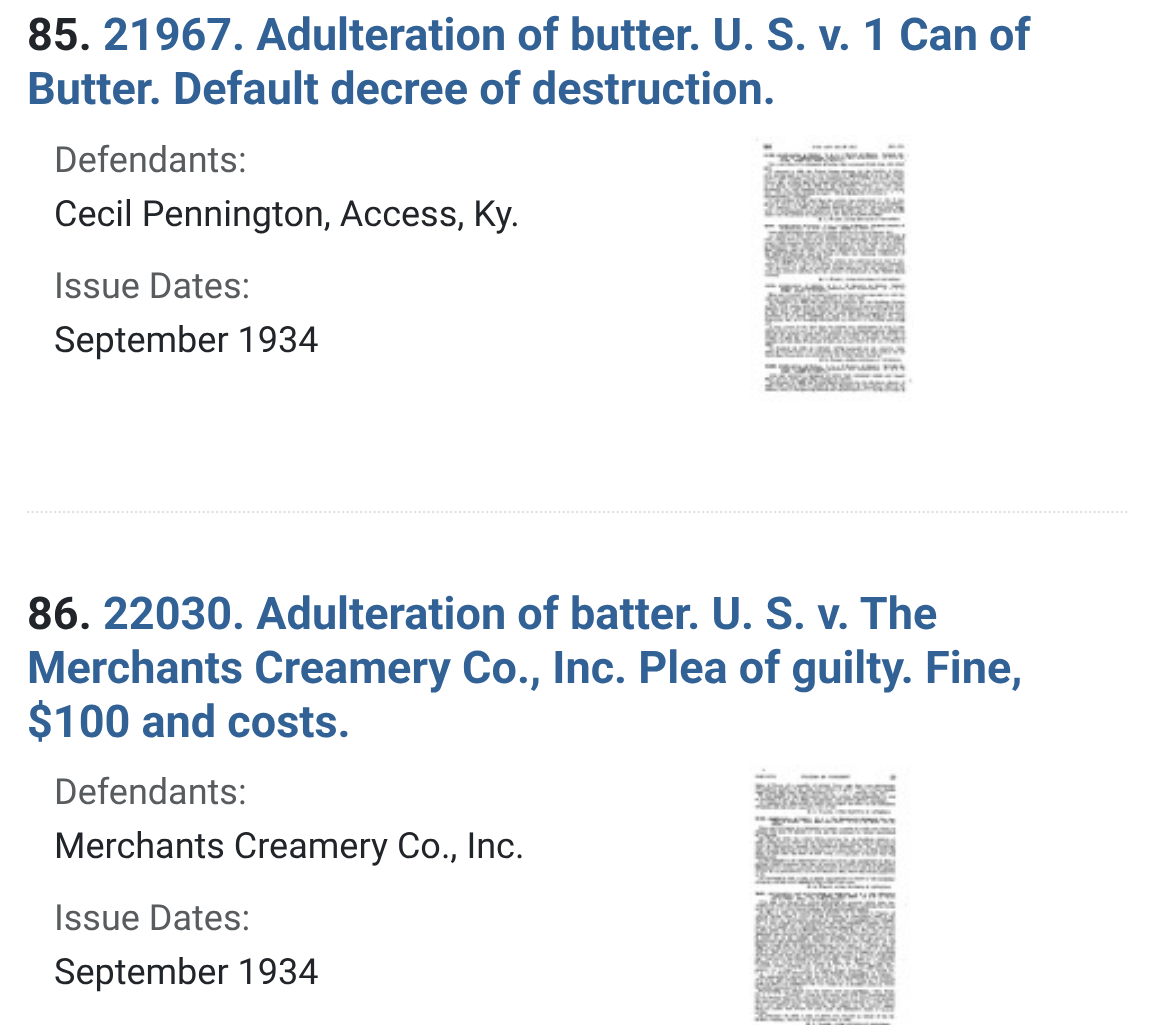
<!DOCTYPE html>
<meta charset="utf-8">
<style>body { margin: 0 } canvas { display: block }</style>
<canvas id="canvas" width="1156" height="1025"></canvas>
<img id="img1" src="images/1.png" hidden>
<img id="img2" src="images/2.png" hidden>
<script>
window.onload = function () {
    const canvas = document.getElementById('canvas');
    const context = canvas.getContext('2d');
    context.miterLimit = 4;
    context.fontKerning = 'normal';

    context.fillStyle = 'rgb(255, 255, 255)';
    context.fillRect(0, 0, 1156, 1025);
    context.beginPath();
    context.moveTo(27, 512);
    context.lineTo(1129.5, 512);
    context.strokeStyle = 'rgb(222, 226, 230)';
    context.lineWidth = 2.2;
    context.setLineDash([2.25, 2.25]);
    context.stroke();
    context.drawImage(document.getElementById('img1'), 750, 135, 164, 267);
    context.drawImage(document.getElementById('img2'), 749, 764, 162, 261);
    context.font = 'bold 45px Roboto';
    context.fillStyle = 'rgb(33, 37, 41)';
    context.fillText('85.', 27, 50);
    context.fillStyle = 'rgb(50, 98, 149)';
    context.fillText('21967. Adulteration of butter. U. S. v. 1 Can of', 103, 50);
    context.fillText('Butter. Default decree of destruction.', 27, 104);
    context.font = '36px Roboto';
    context.fillStyle = 'rgb(89, 92, 95)';
    context.fillText('Defendants:', 54, 172);
    context.fillStyle = 'rgb(33, 37, 41)';
    context.fillText('Cecil Pennington, Access, Ky.', 54, 226);
    context.fillStyle = 'rgb(89, 92, 95)';
    context.fillText('Issue Dates:', 54, 298);
    context.fillStyle = 'rgb(33, 37, 41)';
    context.fillText('September 1934', 54, 352);
    context.font = 'bold 45px Roboto';
    context.fillText('86.', 27, 629);
    context.fillStyle = 'rgb(50, 98, 149)';
    context.fillText('22030. Adulteration of batter. U. S. v. The', 103, 629);
    context.fillText('Merchants Creamery Co., Inc. Plea of guilty. Fine,', 27, 683);
    context.fillText('$100 and costs.', 27, 737);
    context.font = '36px Roboto';
    context.fillStyle = 'rgb(89, 92, 95)';
    context.fillText('Defendants:', 54, 804);
    context.fillStyle = 'rgb(33, 37, 41)';
    context.fillText('Merchants Creamery Co., Inc.', 54, 858);
    context.fillStyle = 'rgb(89, 92, 95)';
    context.fillText('Issue Dates:', 54, 930);
    context.fillStyle = 'rgb(33, 37, 41)';
    context.fillText('September 1934', 54, 984);
};
</script>
